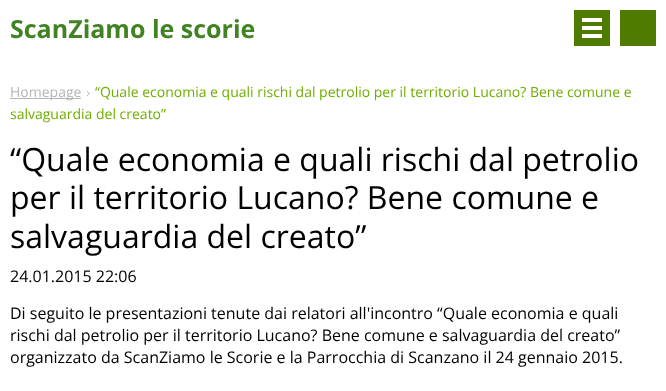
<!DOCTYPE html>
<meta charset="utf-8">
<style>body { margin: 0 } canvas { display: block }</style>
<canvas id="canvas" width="666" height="391"></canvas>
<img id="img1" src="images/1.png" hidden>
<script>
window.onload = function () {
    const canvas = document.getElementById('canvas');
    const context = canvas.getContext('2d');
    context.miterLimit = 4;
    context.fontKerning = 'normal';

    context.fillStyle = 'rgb(255, 255, 255)';
    context.fillRect(0, 0, 666, 391);
    context.fillStyle = 'rgb(78, 123, 0)';
    context.fillRect(574, 10, 36, 36);
    context.fillStyle = 'rgb(255, 255, 255)';
    context.fillRect(582, 18, 20, 4);
    context.fillRect(582, 34, 20, 4);
    context.fillRect(582, 26, 20, 4);
    context.fillStyle = 'rgb(78, 123, 0)';
    context.fillRect(620, 10, 36, 36);
    context.fillStyle = 'rgb(181, 181, 181)';
    context.fillRect(10, 98, 71, 1);
    context.drawImage(document.getElementById('img1'), 87, 91, 3, 5);
    context.font = 'bold 25px Open Sans';
    context.fillStyle = 'rgb(65, 130, 35)';
    context.fillText('ScanZiamo le scorie', 10, 38);
    context.font = '14px Open Sans';
    context.fillStyle = 'rgb(181, 181, 181)';
    context.fillText('Homepage', 10, 97);
    context.fillStyle = 'rgb(111, 174, 0)';
    context.fillText('“Quale economia e quali rischi dal petrolio per il territorio Lucano? Bene comune e', 95, 97);
    context.fillText('salvaguardia del creato”', 10, 119);
    context.font = '32px Open Sans';
    context.fillStyle = 'rgb(0, 0, 0)';
    context.fillText('“Quale economia e quali rischi dal petrolio', 10, 171);
    context.fillText('per il territorio Lucano? Bene comune e', 10, 209);
    context.fillText('salvaguardia del creato”', 10, 248);
    context.font = '16px Open Sans';
    context.fillText('24.01.2015 22:06', 10, 282);
    context.fillText('Di seguito le presentazioni tenute dai relatori all\'incontro “Quale economia e quali', 10, 319);
    context.fillText('rischi dal petrolio per il territorio Lucano? Bene comune e salvaguardia del creato”', 10, 341);
    context.fillText('organizzato da ScanZiamo le Scorie e la Parrocchia di Scanzano il 24 gennaio 2015.', 10, 363);
};
</script>
